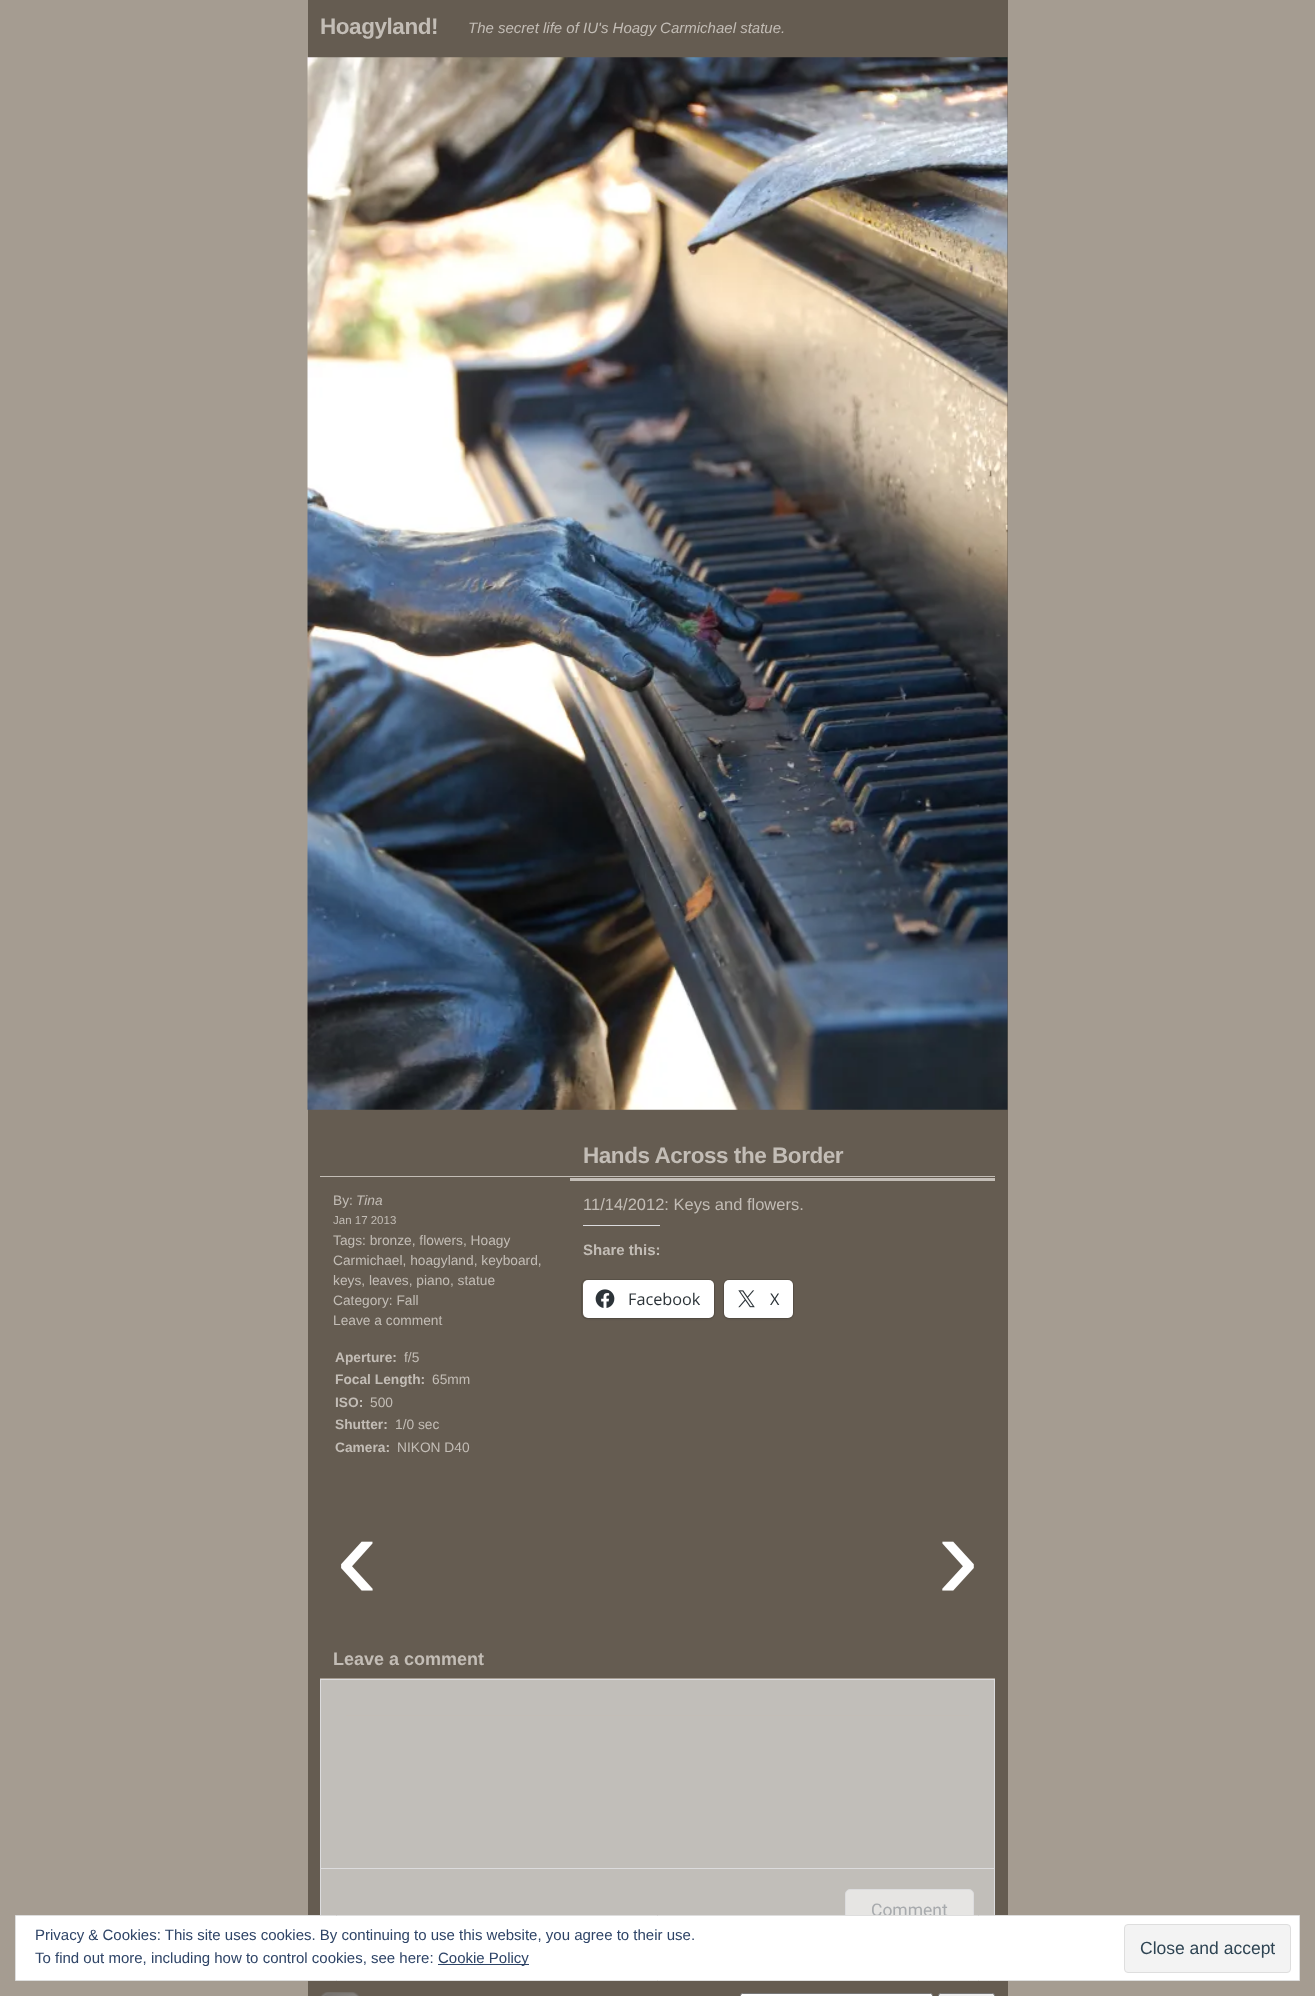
<!DOCTYPE html>
<meta charset="utf-8">
<style>body { margin: 0 } canvas { display: block }</style>
<canvas id="canvas" width="1315" height="1996"></canvas>
<img id="img1" src="images/1.png" hidden>
<img id="img2" src="images/2.png" hidden>
<img id="img3" src="images/3.png" hidden>
<img id="img4" src="images/4.png" hidden>
<script>
window.onload = function () {
    const canvas = document.getElementById('canvas');
    const context = canvas.getContext('2d');
    context.miterLimit = 4;
    context.fontKerning = 'normal';

    context.fillStyle = 'rgb(165, 156, 145)';
    context.fillRect(0, 0, 1315, 1996);
    context.fillStyle = 'rgb(101, 92, 81)';
    context.fillRect(308, 0, 700, 1996);
    context.drawImage(document.getElementById('img1'), 307, 57, 701, 1053);
    context.fillStyle = 'rgb(195, 189, 182)';
    context.fillRect(320, 1176, 675, 1);
    context.fillRect(570, 1178, 425, 3);
    context.fillStyle = 'rgb(220, 220, 222)';
    context.fillRect(583, 1225, 77, 1);
    context.beginPath();
    context.roundRect(581.5, 1279.5, 133, 39, 5.5);
    context.strokeStyle = 'rgb(89, 81, 71)';
    context.stroke();
    context.fillStyle = 'rgba(0, 0, 0, 0.12)';
    context.filter = 'blur(1px)';
    context.beginPath();
    context.roundRect(583, 1281, 131, 38, 5);
    context.fill();
    context.filter = 'none';
    context.fillStyle = 'rgb(255, 255, 255)';
    context.beginPath();
    context.roundRect(583, 1280, 131, 38, 5);
    context.fill();
    context.drawImage(document.getElementById('img2'), 595, 1289, 20, 19);
    context.beginPath();
    context.roundRect(723.5, 1279.5, 70, 39, 5.5);
    context.stroke();
    context.fillStyle = 'rgba(0, 0, 0, 0.12)';
    context.filter = 'blur(1px)';
    context.beginPath();
    context.roundRect(724, 1281, 69, 38, 5);
    context.fill();
    context.filter = 'none';
    context.fillStyle = 'rgb(255, 255, 255)';
    context.beginPath();
    context.roundRect(724, 1280, 69, 38, 5);
    context.fill();
    context.drawImage(document.getElementById('img3'), 738, 1290, 17, 18);
    context.fillStyle = 'rgb(165, 156, 145)';
    context.fillRect(320, 1678, 675, 1);
    context.fillStyle = 'rgb(193, 190, 185)';
    context.fillRect(321, 1680, 673, 235);
    context.strokeStyle = 'rgb(220, 220, 222)';
    context.strokeRect(320.5, 1679.5, 674, 274);
    context.fillStyle = 'rgb(195, 189, 182)';
    context.fillRect(346, 1715, 623, 1);
    context.fillStyle = 'rgb(220, 220, 222)';
    context.fillRect(321, 1868, 673, 1);
    context.fillStyle = 'rgb(230, 229, 227)';
    context.beginPath();
    context.roundRect(845.5, 1889.5, 128, 43, 4.5);
    context.fill();
    context.stroke();
    context.drawImage(document.getElementById('img4'), 321, 1992, 38, 4);
    context.fillStyle = 'rgb(255, 255, 255)';
    context.beginPath();
    context.roundRect(740.5, 1993.5, 192, 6, 2);
    context.fill();
    context.strokeStyle = 'rgb(118, 118, 118)';
    context.stroke();
    context.fillStyle = 'rgb(239, 239, 239)';
    context.beginPath();
    context.roundRect(938.5, 1993.5, 56, 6, 2);
    context.fill();
    context.stroke();
    context.letterSpacing = '-0.45px';
    context.font = 'bold 22.5px Liberation Sans';
    context.fillStyle = 'rgb(195, 189, 182)';
    context.fillText('Hoagyland!', 320, 34);
    context.letterSpacing = '0px';
    context.font = 'italic 15px Liberation Sans';
    context.fillText('The secret life of IU\'s Hoagy Carmichael statue.', 468, 33);
    context.letterSpacing = '-0.45px';
    context.font = 'bold 22.5px Liberation Sans';
    context.fillText('Hands Across the Border', 583, 1163);
    context.letterSpacing = '0px';
    context.font = '13.75px Liberation Sans';
    context.fillText('By:', 333, 1205);
    context.font = 'italic 13.75px Liberation Sans';
    context.fillText('Tina', 356, 1205);
    context.font = '11.5px Liberation Sans';
    context.fillText('Jan 17 2013', 333, 1224);
    context.font = '13.75px Liberation Sans';
    context.fillText('Tags: bronze, flowers, Hoagy', 333, 1245);
    context.fillText('Carmichael, hoagyland, keyboard,', 333, 1265);
    context.fillText('keys, leaves, piano, statue', 333, 1285);
    context.fillText('Category: Fall', 333, 1305);
    context.fillText('Leave a comment', 333, 1325);
    context.font = 'bold 13.75px Liberation Sans';
    context.fillText('Aperture:', 335, 1362);
    context.font = '13.75px Liberation Sans';
    context.fillText('f/5', 404, 1362);
    context.font = 'bold 13.75px Liberation Sans';
    context.fillText('Focal Length:', 335, 1384);
    context.font = '13.75px Liberation Sans';
    context.fillText('65mm', 432, 1384);
    context.font = 'bold 13.75px Liberation Sans';
    context.fillText('ISO:', 335, 1407);
    context.font = '13.75px Liberation Sans';
    context.fillText('500', 370, 1407);
    context.font = 'bold 13.75px Liberation Sans';
    context.fillText('Shutter:', 335, 1429);
    context.font = '13.75px Liberation Sans';
    context.fillText('1/0 sec', 395, 1429);
    context.font = 'bold 13.75px Liberation Sans';
    context.fillText('Camera:', 335, 1452);
    context.font = '13.75px Liberation Sans';
    context.fillText('NIKON D40', 397, 1452);
    context.font = '16.5px Liberation Sans';
    context.fillText('11/14/2012: Keys and flowers.', 583, 1210);
    context.font = 'bold 15px Liberation Sans';
    context.fillText('Share this:', 583, 1255);
    context.font = '16.25px Open Sans';
    context.fillStyle = 'rgb(44, 51, 56)';
    context.fillText('Facebook', 628, 1305);
    context.fillText('X', 770, 1305);
    context.font = '125px Liberation Mono';
    context.fillStyle = 'rgb(255, 255, 255)';
    context.fillText('‹', 320, 1599);
    context.fillText('›', 920, 1599);
    context.font = 'bold 18px Liberation Sans';
    context.fillStyle = 'rgb(195, 189, 182)';
    context.fillText('Leave a comment', 333, 1665);
    context.font = '17.5px Roboto';
    context.fillStyle = 'rgb(167, 170, 173)';
    context.fillText('Comment', 871, 1916);
    context.fillStyle = 'rgb(255, 255, 255)';
    context.beginPath();
    context.rect(15.5, 1915.5, 1284, 65);
    context.fill();
    context.strokeStyle = 'rgb(222, 222, 222)';
    context.stroke();
    context.font = '15px Liberation Sans';
    context.fillStyle = 'rgb(46, 68, 103)';
    context.fillText('Privacy & Cookies: This site uses cookies. By continuing to use this website, you agree to their use.', 35, 1940);
    context.fillStyle = 'rgb(243, 243, 243)';
    context.beginPath();
    context.roundRect(1124.5, 1924.5, 166, 48, 3.5);
    context.fill();
    context.stroke();
    context.font = '17.5px Liberation Sans';
    context.fillStyle = 'rgb(46, 68, 83)';
    context.fillText('Close and accept', 1140, 1954);
    context.font = '15px Liberation Sans';
    context.fillStyle = 'rgb(46, 68, 103)';
    context.fillText('To find out more, including how to control cookies, see here:', 35, 1963);
    context.fillRect(438, 1964, 91, 1);
    context.fillText('Cookie Policy', 438, 1963);
};
</script>
